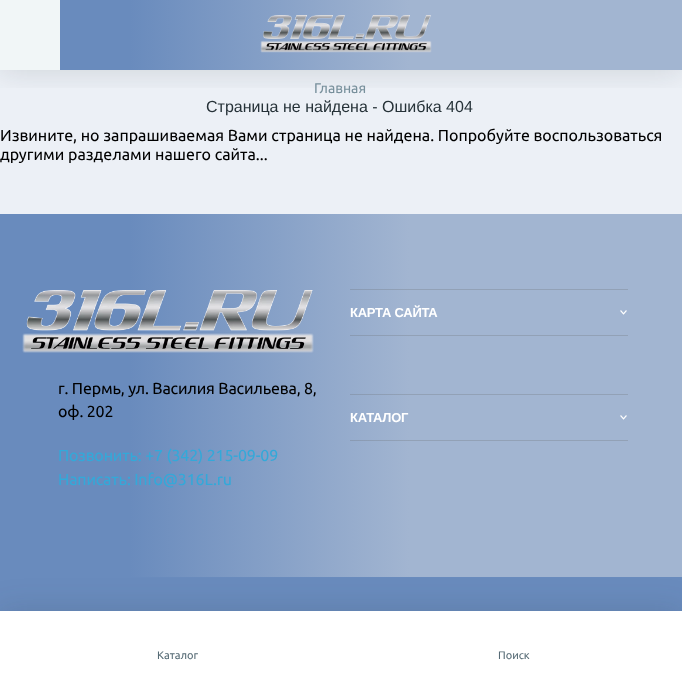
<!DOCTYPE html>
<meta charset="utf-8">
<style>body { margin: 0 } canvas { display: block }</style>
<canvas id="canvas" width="682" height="673"></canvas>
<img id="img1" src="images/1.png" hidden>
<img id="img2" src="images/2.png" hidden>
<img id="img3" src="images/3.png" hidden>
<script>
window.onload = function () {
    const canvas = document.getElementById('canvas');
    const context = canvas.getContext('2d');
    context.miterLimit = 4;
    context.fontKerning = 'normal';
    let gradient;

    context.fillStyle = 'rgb(255, 255, 255)';
    context.fillRect(0, 0, 682, 673);
    context.fillStyle = 'rgb(236, 240, 246)';
    context.fillRect(0, 70, 682, 144);
    gradient = context.createLinearGradient(0, 396, 682, 396);
    gradient.addColorStop(0.19, 'rgb(105, 139, 189)');
    gradient.addColorStop(0.6, 'rgb(162, 181, 209)');
    context.fillStyle = gradient;
    context.fillRect(0, 214, 682, 363);
    gradient = context.createLinearGradient(0, 396, 682, 396);
    gradient.addColorStop(0.19, 'rgb(104, 129, 167)');
    gradient.addColorStop(0.6, 'rgb(146, 161, 182)');
    context.fillStyle = gradient;
    context.fillRect(350, 440, 278, 1);
    context.fillRect(350, 394, 278, 1);
    context.fillRect(350, 335, 278, 1);
    context.fillRect(350, 289, 278, 1);
    context.drawImage(document.getElementById('img1'), 620, 310, 7, 5);
    context.drawImage(document.getElementById('img1'), 620, 415, 7, 5);
    context.drawImage(document.getElementById('img2'), 22, 290, 292, 63);
    context.fillStyle = 'rgb(105, 139, 189)';
    context.fillRect(0, 577, 682, 34);
    gradient = context.createLinearGradient(0, 35, 682, 35);
    gradient.addColorStop(0.19, 'rgb(105, 139, 189)');
    gradient.addColorStop(0.6, 'rgb(162, 181, 209)');
    context.fillStyle = gradient;
    context.fillRect(60, 0, 622, 70);
    context.save();
    context.beginPath();
    context.rect(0, 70, 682, 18);
    context.clip();
    context.fillStyle = 'rgba(38, 50, 56, 0.16)';
    context.filter = 'blur(16px)';
    context.beginPath();
    context.rect(0, 0, 682, 70);
    context.fill();
    context.filter = 'none';
    context.restore();
    context.fillStyle = 'rgb(241, 246, 247)';
    context.fillRect(0, 0, 60, 70);
    context.drawImage(document.getElementById('img3'), 260, 15, 172, 38);
    context.fillStyle = 'rgba(38, 50, 56, 0.16)';
    context.filter = 'blur(16px)';
    context.beginPath();
    context.rect(0, 611, 682, 62);
    context.fill();
    context.filter = 'none';
    context.fillStyle = 'rgb(255, 255, 255)';
    context.fillRect(0, 611, 682, 62);
    context.font = '14px Ubuntu';
    context.fillStyle = 'rgb(120, 144, 156)';
    context.fillText('Главная', 314, 93);
    context.font = '16px Liberation Sans';
    context.fillStyle = 'rgb(38, 50, 56)';
    context.fillText('Страница не найдена - Ошибка 404', 206, 112);
    context.font = '16px Ubuntu';
    context.fillStyle = 'rgb(0, 0, 0)';
    context.fillText('Извините, но запрашиваемая Вами страница не найдена. Попробуйте воспользоваться', 0, 141);
    context.fillText('другими разделами нашего сайта...', 0, 160);
    context.letterSpacing = '-0.25px';
    context.font = 'bold 13px Liberation Sans';
    context.fillStyle = 'rgb(255, 255, 255)';
    context.fillText('КАРТА САЙТА', 350, 317);
    context.fillText('КАТАЛОГ', 350, 422);
    context.letterSpacing = '-0.15px';
    context.font = '16px Ubuntu';
    context.fillStyle = 'rgb(0, 0, 0)';
    context.fillText('г. Пермь, ул. Василия Васильева, 8,', 58, 394);
    context.fillText('оф. 202', 58, 417);
    context.fillStyle = 'rgb(51, 169, 217)';
    context.fillText('Позвонить: +7 (342) 215-09-09', 58, 461);
    context.fillText('Написать: Info@316L.ru', 58, 485);
    context.letterSpacing = '0px';
    context.font = '11px Ubuntu';
    context.fillStyle = 'rgb(86, 107, 117)';
    context.fillText('Каталог', 157, 659);
    context.fillText('Поиск', 498, 659);
};
</script>
